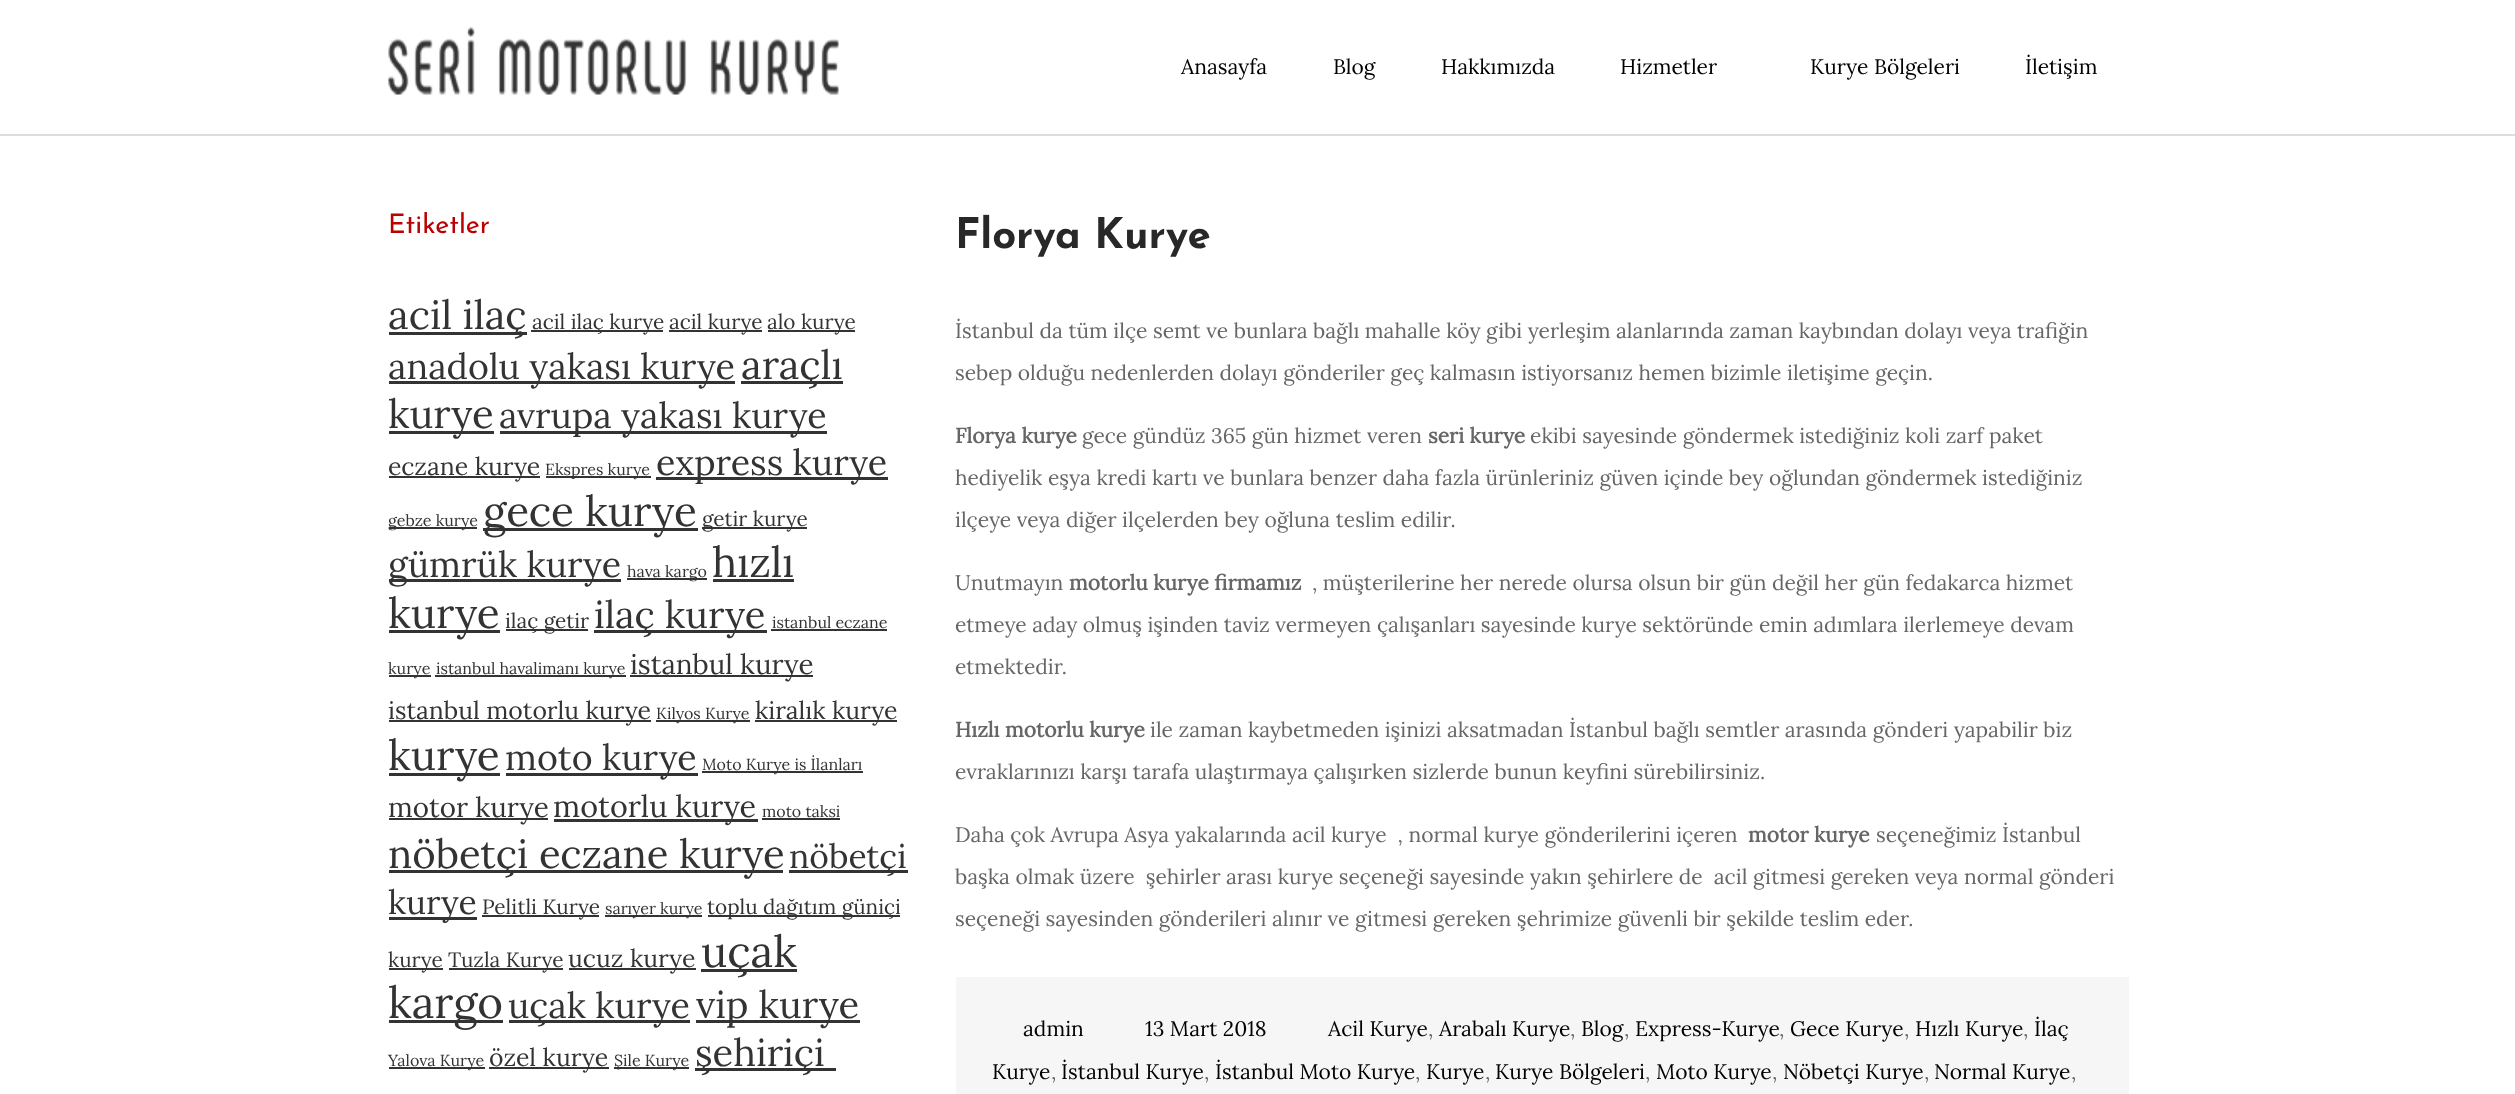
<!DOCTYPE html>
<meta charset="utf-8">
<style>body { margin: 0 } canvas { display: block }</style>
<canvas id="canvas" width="2515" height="1094"></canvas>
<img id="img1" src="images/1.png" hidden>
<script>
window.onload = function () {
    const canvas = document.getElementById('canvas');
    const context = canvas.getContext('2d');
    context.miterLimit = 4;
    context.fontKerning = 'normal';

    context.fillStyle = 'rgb(255, 255, 255)';
    context.fillRect(0, 0, 2515, 1094);
    context.fillStyle = 'rgb(221, 221, 221)';
    context.fillRect(0, 134, 2515, 2);
    context.drawImage(document.getElementById('img1'), 388, 26, 451, 69);
    context.fillStyle = 'rgb(51, 51, 51)';
    context.fillRect(389, 332, 138, 3);
    context.fillRect(531, 330, 132, 2);
    context.fillRect(669, 330, 93, 2);
    context.fillRect(768, 330, 87, 2);
    context.fillRect(389, 381, 346, 3);
    context.fillRect(741, 381, 102, 3);
    context.fillRect(389, 431, 105, 3);
    context.fillRect(500, 431, 327, 3);
    context.fillRect(389, 476, 151, 2);
    context.fillRect(546, 476, 105, 2);
    context.fillRect(656, 477, 232, 3);
    context.fillRect(389, 527, 88, 2);
    context.fillRect(483, 528, 215, 3);
    context.fillRect(702, 527, 105, 2);
    context.fillRect(389, 579, 232, 3);
    context.fillRect(627, 578, 80, 2);
    context.fillRect(713, 579, 81, 3);
    context.fillRect(389, 630, 111, 3);
    context.fillRect(506, 629, 82, 2);
    context.fillRect(594, 630, 173, 3);
    context.fillRect(771, 629, 116, 2);
    context.fillRect(389, 675, 42, 2);
    context.fillRect(435, 675, 191, 2);
    context.fillRect(630, 675, 183, 2);
    context.fillRect(389, 720, 262, 2);
    context.fillRect(656, 720, 94, 2);
    context.fillRect(755, 720, 142, 2);
    context.fillRect(389, 773, 111, 3);
    context.fillRect(506, 773, 192, 3);
    context.fillRect(702, 771, 161, 2);
    context.fillRect(389, 818, 159, 2);
    context.fillRect(554, 819, 204, 3);
    context.fillRect(762, 818, 78, 2);
    context.fillRect(389, 870, 394, 3);
    context.fillRect(789, 870, 119, 3);
    context.fillRect(389, 917, 88, 3);
    context.fillRect(482, 915, 117, 2);
    context.fillRect(605, 915, 97, 2);
    context.fillRect(708, 915, 192, 2);
    context.fillRect(389, 968, 54, 2);
    context.fillRect(449, 968, 114, 2);
    context.fillRect(569, 968, 127, 2);
    context.fillRect(701, 969, 96, 3);
    context.fillRect(389, 1020, 114, 3);
    context.fillRect(509, 1020, 181, 3);
    context.fillRect(696, 1020, 164, 3);
    context.fillRect(389, 1067, 96, 2);
    context.fillRect(489, 1067, 120, 2);
    context.fillRect(614, 1067, 75, 2);
    context.fillRect(695, 1068, 141, 3);
    context.fillStyle = 'rgb(246, 246, 246)';
    context.fillRect(956, 977, 1173, 117);
    context.font = '21px Lora';
    context.fillStyle = 'rgb(0, 0, 0)';
    context.fillText('Anasayfa', 1181, 74);
    context.fillText('Blog', 1333, 74);
    context.fillText('Hakkımızda', 1441, 74);
    context.fillText('Hizmetler', 1620, 74);
    context.fillText('Kurye Bölgeleri', 1810, 74);
    context.fillText('İletişim', 2025, 74);
    context.font = '27px Josefin Sans';
    context.fillStyle = 'rgb(188, 1, 1)';
    context.fillText('Etiketler', 388, 233);
    context.font = '40px Lora';
    context.fillStyle = 'rgb(51, 51, 51)';
    context.fillText('acil ilaç', 388, 329);
    context.font = '20.75px Lora';
    context.fillText('acil ilaç kurye', 532, 329);
    context.fillText('acil kurye', 669, 329);
    context.fillText('alo kurye', 767, 329);
    context.font = '35.75px Lora';
    context.fillText('anadolu yakası kurye', 388, 379);
    context.font = '40px Lora';
    context.fillText('araçlı', 741, 379);
    context.fillText('kurye', 388, 428);
    context.font = '35.75px Lora';
    context.fillText('avrupa yakası kurye', 499, 428);
    context.font = '24.75px Lora';
    context.fillText('eczane kurye', 388, 475);
    context.font = '16px Lora';
    context.fillText('Ekspres kurye', 545, 475);
    context.font = '35.75px Lora';
    context.fillText('express kurye', 656, 475);
    context.font = '16px Lora';
    context.fillText('gebze kurye', 388, 526);
    context.font = '42.25px Lora';
    context.fillText('gece kurye', 483, 526);
    context.font = '20.75px Lora';
    context.fillText('getir kurye', 702, 526);
    context.font = '35.75px Lora';
    context.fillText('gümrük kurye', 388, 577);
    context.font = '16px Lora';
    context.fillText('hava kargo', 627, 577);
    context.font = '42.25px Lora';
    context.fillText('hızlı', 712, 577);
    context.fillText('kurye', 388, 628);
    context.font = '20.75px Lora';
    context.fillText('ilaç getir', 505, 628);
    context.font = '38px Lora';
    context.fillText('ilaç kurye', 594, 628);
    context.font = '16px Lora';
    context.fillText('istanbul eczane', 772, 628);
    context.fillText('kurye', 388, 674);
    context.fillText('istanbul havalimanı kurye', 436, 674);
    context.font = '27.75px Lora';
    context.fillText('istanbul kurye', 630, 674);
    context.font = '24.75px Lora';
    context.fillText('istanbul motorlu kurye', 388, 719);
    context.font = '16px Lora';
    context.fillText('Kilyos Kurye', 656, 719);
    context.font = '24.75px Lora';
    context.fillText('kiralık kurye', 755, 719);
    context.font = '42.25px Lora';
    context.fillText('kurye', 388, 770);
    context.font = '35.75px Lora';
    context.fillText('moto kurye', 505, 770);
    context.font = '16px Lora';
    context.fillText('Moto Kurye is İlanları', 702, 770);
    context.font = '27.75px Lora';
    context.fillText('motor kurye', 388, 817);
    context.font = '30.5px Lora';
    context.fillText('motorlu kurye', 553, 817);
    context.font = '16px Lora';
    context.fillText('moto taksi', 762, 817);
    context.font = '40px Lora';
    context.fillText('nöbetçi eczane kurye', 388, 868);
    context.font = '33.5px Lora';
    context.fillText('nöbetçi', 789, 868);
    context.fillText('kurye', 388, 914);
    context.font = '20.75px Lora';
    context.fillText('Pelitli Kurye', 482, 914);
    context.font = '16px Lora';
    context.fillText('sarıyer kurye', 605, 914);
    context.font = '20.75px Lora';
    context.fillText('toplu dağıtım güniçi', 707, 914);
    context.fillText('kurye', 388, 967);
    context.fillText('Tuzla Kurye', 448, 967);
    context.font = '24.75px Lora';
    context.fillText('ucuz kurye', 568, 967);
    context.font = '44px Lora';
    context.fillText('uçak', 701, 967);
    context.fillText('kargo', 388, 1018);
    context.font = '35.75px Lora';
    context.fillText('uçak kurye', 508, 1018);
    context.font = '38px Lora';
    context.fillText('vip kurye', 696, 1018);
    context.font = '16px Lora';
    context.fillText('Yalova Kurye', 388, 1066);
    context.font = '24.75px Lora';
    context.fillText('özel kurye', 489, 1066);
    context.font = '16px Lora';
    context.fillText('Şile Kurye', 614, 1066);
    context.font = '38px Lora';
    context.fillText('şehiriçi', 695, 1066);
    context.font = 'bold 42px Josefin Sans';
    context.fillStyle = 'rgb(40, 40, 40)';
    context.fillText('Florya Kurye', 955, 248);
    context.font = '21px Lora';
    context.fillStyle = 'rgb(102, 102, 102)';
    context.fillText('İstanbul da tüm ilçe semt ve bunlara bağlı mahalle köy gibi yerleşim alanlarında zaman kaybından dolayı veya trafiğin', 955, 338);
    context.fillText('sebep olduğu nedenlerden dolayı gönderiler geç kalmasın istiyorsanız hemen bizimle iletişime geçin.', 955, 380);
    context.font = 'bold 21px Lora';
    context.fillText('Florya kurye', 955, 443);
    context.font = '21px Lora';
    context.fillText('gece gündüz 365 gün hizmet veren', 1082, 443);
    context.font = 'bold 21px Lora';
    context.fillText('seri kurye', 1428, 443);
    context.font = '21px Lora';
    context.fillText('ekibi sayesinde göndermek istediğiniz koli zarf paket', 1530, 443);
    context.fillText('hediyelik eşya kredi kartı ve bunlara benzer daha fazla ürünleriniz güven içinde bey oğlundan göndermek istediğiniz', 955, 485);
    context.fillText('ilçeye veya diğer ilçelerden bey oğluna teslim edilir.', 955, 527);
    context.fillText('Unutmayın', 955, 590);
    context.font = 'bold 21px Lora';
    context.fillText('motorlu kurye firmamız', 1069, 590);
    context.font = '21px Lora';
    context.fillText(', müşterilerine her nerede olursa olsun bir gün değil her gün fedakarca hizmet', 1312, 590);
    context.fillText('etmeye aday olmuş işinden taviz vermeyen çalışanları sayesinde kurye sektöründe emin adımlara ilerlemeye devam', 955, 632);
    context.fillText('etmektedir.', 955, 674);
    context.font = 'bold 21px Lora';
    context.fillText('Hızlı motorlu kurye', 955, 737);
    context.font = '21px Lora';
    context.fillText('ile zaman kaybetmeden işinizi aksatmadan İstanbul bağlı semtler arasında gönderi yapabilir biz', 1150, 737);
    context.fillText('evraklarınızı karşı tarafa ulaştırmaya çalışırken sizlerde bunun keyfini sürebilirsiniz.', 955, 779);
    context.fillText('Daha çok Avrupa Asya yakalarında acil kurye  , normal kurye gönderilerini içeren', 955, 842);
    context.font = 'bold 21px Lora';
    context.fillText('motor kurye', 1748, 842);
    context.font = '21px Lora';
    context.fillText('seçeneğimiz İstanbul', 1876, 842);
    context.fillText('başka olmak üzere  şehirler arası kurye seçeneği sayesinde yakın şehirlere de  acil gitmesi gereken veya normal gönderi', 955, 884);
    context.fillText('seçeneği sayesinden gönderileri alınır ve gitmesi gereken şehrimize güvenli bir şekilde teslim eder.', 955, 926);
    context.fillStyle = 'rgb(0, 0, 0)';
    context.fillText('admin', 1023, 1036);
    context.fillText('13 Mart 2018', 1145, 1036);
    context.fillText('Acil Kurye', 1328, 1036);
    context.fillStyle = 'rgb(102, 102, 102)';
    context.fillText(',', 1428, 1036);
    context.fillStyle = 'rgb(0, 0, 0)';
    context.fillText('Arabalı Kurye', 1439, 1036);
    context.fillStyle = 'rgb(102, 102, 102)';
    context.fillText(',', 1570, 1036);
    context.fillStyle = 'rgb(0, 0, 0)';
    context.fillText('Blog', 1581, 1036);
    context.fillStyle = 'rgb(102, 102, 102)';
    context.fillText(',', 1624, 1036);
    context.fillStyle = 'rgb(0, 0, 0)';
    context.fillText('Express-Kurye', 1635, 1036);
    context.fillStyle = 'rgb(102, 102, 102)';
    context.fillText(',', 1779, 1036);
    context.fillStyle = 'rgb(0, 0, 0)';
    context.fillText('Gece Kurye', 1790, 1036);
    context.fillStyle = 'rgb(102, 102, 102)';
    context.fillText(',', 1904, 1036);
    context.fillStyle = 'rgb(0, 0, 0)';
    context.fillText('Hızlı Kurye', 1915, 1036);
    context.fillStyle = 'rgb(102, 102, 102)';
    context.fillText(',', 2023, 1036);
    context.fillStyle = 'rgb(0, 0, 0)';
    context.fillText('İlaç', 2034, 1036);
    context.fillText('Kurye', 992, 1079);
    context.fillStyle = 'rgb(102, 102, 102)';
    context.fillText(',', 1051, 1079);
    context.fillStyle = 'rgb(0, 0, 0)';
    context.fillText('İstanbul Kurye', 1061, 1079);
    context.fillStyle = 'rgb(102, 102, 102)';
    context.fillText(',', 1204, 1079);
    context.fillStyle = 'rgb(0, 0, 0)';
    context.fillText('İstanbul Moto Kurye', 1215, 1079);
    context.fillStyle = 'rgb(102, 102, 102)';
    context.fillText(',', 1415, 1079);
    context.fillStyle = 'rgb(0, 0, 0)';
    context.fillText('Kurye', 1426, 1079);
    context.fillStyle = 'rgb(102, 102, 102)';
    context.fillText(',', 1485, 1079);
    context.fillStyle = 'rgb(0, 0, 0)';
    context.fillText('Kurye Bölgeleri', 1495, 1079);
    context.fillStyle = 'rgb(102, 102, 102)';
    context.fillText(',', 1645, 1079);
    context.fillStyle = 'rgb(0, 0, 0)';
    context.fillText('Moto Kurye', 1656, 1079);
    context.fillStyle = 'rgb(102, 102, 102)';
    context.fillText(',', 1772, 1079);
    context.fillStyle = 'rgb(0, 0, 0)';
    context.fillText('Nöbetçi Kurye', 1783, 1079);
    context.fillStyle = 'rgb(102, 102, 102)';
    context.fillText(',', 1924, 1079);
    context.fillStyle = 'rgb(0, 0, 0)';
    context.fillText('Normal Kurye', 1934, 1079);
    context.fillStyle = 'rgb(102, 102, 102)';
    context.fillText(',', 2071, 1079);
};
</script>
